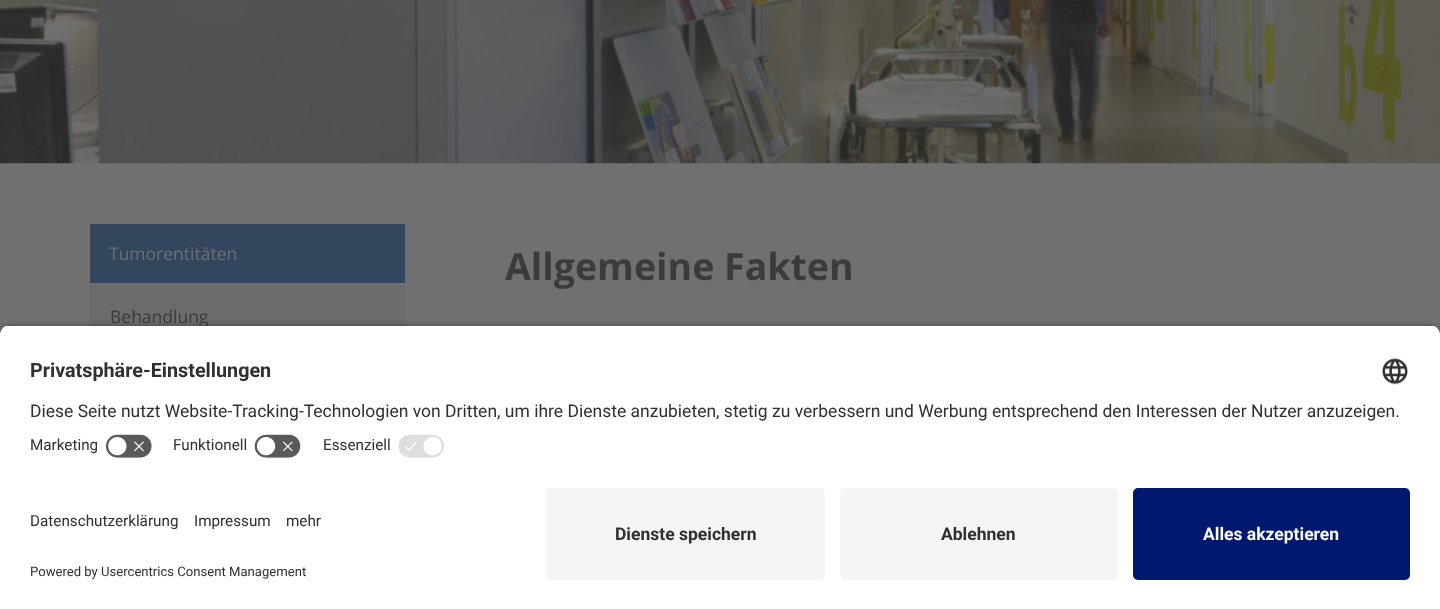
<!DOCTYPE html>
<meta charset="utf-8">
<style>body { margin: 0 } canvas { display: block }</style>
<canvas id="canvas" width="1440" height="609"></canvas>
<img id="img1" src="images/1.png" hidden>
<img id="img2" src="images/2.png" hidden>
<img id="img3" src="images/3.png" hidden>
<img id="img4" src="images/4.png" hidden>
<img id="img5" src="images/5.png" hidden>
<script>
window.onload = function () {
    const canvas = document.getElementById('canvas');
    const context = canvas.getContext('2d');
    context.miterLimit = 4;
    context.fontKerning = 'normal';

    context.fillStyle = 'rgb(112, 112, 112)';
    context.fillRect(0, 0, 1440, 609);
    context.drawImage(document.getElementById('img1'), 0, 0, 1440, 164);
    context.fillStyle = 'rgb(51, 70, 94)';
    context.fillRect(90, 224, 315, 59);
    context.fillStyle = 'rgb(107, 107, 107)';
    context.fillRect(91, 286, 313, 40);
    context.strokeStyle = 'rgb(105, 105, 105)';
    context.strokeRect(90.5, 285.5, 314, 62);
    context.fillStyle = 'rgba(0, 0, 0, 0.8)';
    context.filter = 'blur(4.5px)';
    context.beginPath();
    context.roundRect(0, 329, 1440, 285, 10);
    context.fill();
    context.filter = 'none';
    context.fillStyle = 'rgb(255, 255, 255)';
    context.fillRect(0, 478, 1440, 131);
    context.fillStyle = 'rgb(245, 245, 245)';
    context.beginPath();
    context.roundRect(546, 488, 279, 92, 5);
    context.fill();
    context.beginPath();
    context.roundRect(840, 488, 278, 92, 5);
    context.fill();
    context.fillStyle = 'rgb(0, 24, 110)';
    context.beginPath();
    context.roundRect(1133, 488, 277, 92, 5);
    context.fill();
    context.font = '17.5px Open Sans';
    context.fillStyle = 'rgb(112, 112, 112)';
    context.fillText('Tumorentitäten', 109, 260);
    context.fillStyle = 'rgb(59, 59, 59)';
    context.fillText('Behandlung', 110, 323);
    context.font = 'bold 37.5px Open Sans';
    context.fillText('Allgemeine Fakten', 505, 280);
    context.save();
    context.beginPath();
    context.roundRect(0, 325, 1440, 153, [10, 10, 0, 0]);
    context.clip();
    context.fillStyle = 'rgb(255, 255, 255)';
    context.fillRect(0, 326, 1440, 152);
    context.fillRect(0, 326, 1440, 102);
    context.restore();
    context.font = 'bold 19.75px Roboto';
    context.fillStyle = 'rgb(48, 48, 48)';
    context.fillText('Privatsphäre-Einstellungen', 30, 377);
    context.drawImage(document.getElementById('img2'), 1382, 358, 26, 27);
    context.font = '17.5px Roboto';
    context.fillText('Diese Seite nutzt Website-Tracking-Technologien von Dritten, um ihre Dienste anzubieten, stetig zu verbessern und Werbung entsprechend den Interessen der Nutzer anzuzeigen.', 30, 417);
    context.font = '15.25px Roboto';
    context.fillText('Marketing', 30, 450);
    context.drawImage(document.getElementById('img3'), 105, 434, 48, 25);
    context.fillText('Funktionell', 173, 450);
    context.drawImage(document.getElementById('img4'), 254, 434, 47, 25);
    context.fillText('Essenziell', 323, 450);
    context.drawImage(document.getElementById('img5'), 398, 434, 46, 24);
    context.fillText('Datenschutzerklärung', 30, 526);
    context.fillText('Impressum', 194, 526);
    context.fillText('mehr', 286, 526);
    context.font = '13.1px Roboto';
    context.fillText('Powered by Usercentrics Consent Management', 30, 576);
    context.font = 'bold 17.5px Roboto';
    context.fillText('Dienste speichern', 615, 540);
    context.fillText('Ablehnen', 941, 540);
    context.fillStyle = 'rgb(250, 250, 250)';
    context.fillText('Alles akzeptieren', 1203, 540);
};
</script>
